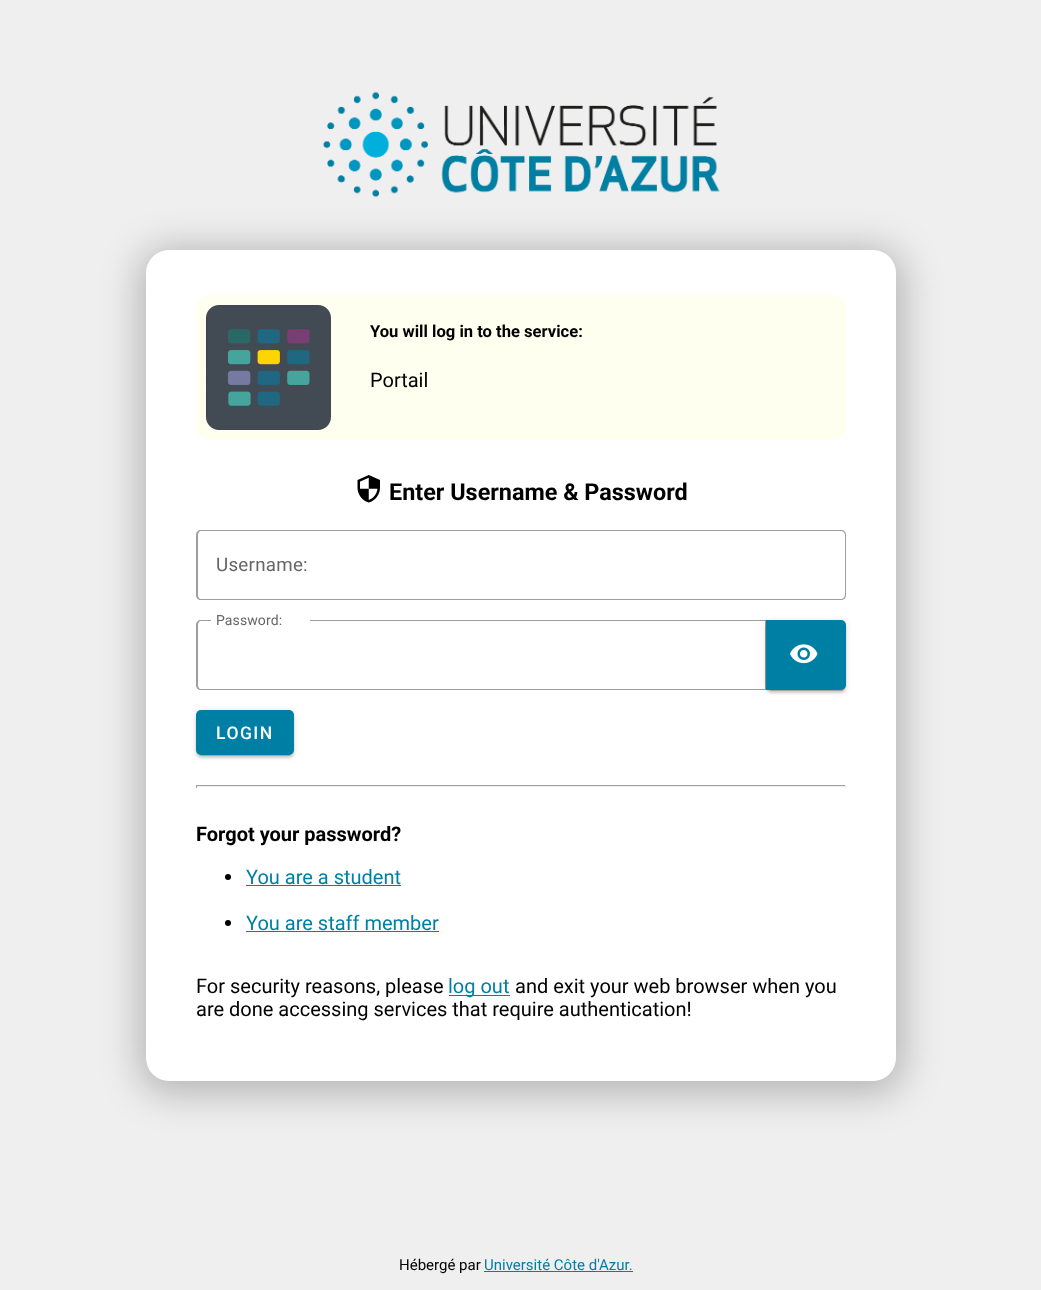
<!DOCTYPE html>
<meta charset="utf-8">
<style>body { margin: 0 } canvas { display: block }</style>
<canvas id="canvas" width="1041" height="1290"></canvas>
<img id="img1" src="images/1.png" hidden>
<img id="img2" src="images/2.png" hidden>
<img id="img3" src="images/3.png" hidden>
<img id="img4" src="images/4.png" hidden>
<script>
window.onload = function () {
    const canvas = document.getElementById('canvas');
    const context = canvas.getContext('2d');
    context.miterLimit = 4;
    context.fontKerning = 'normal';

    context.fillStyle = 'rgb(239, 239, 239)';
    context.fillRect(0, 0, 1041, 1290);
    context.drawImage(document.getElementById('img1'), 323, 91, 397, 107);
    context.fillStyle = 'rgba(0, 0, 0, 0.25)';
    context.filter = 'blur(19px)';
    context.beginPath();
    context.roundRect(140, 249, 763, 844, 29);
    context.fill();
    context.filter = 'none';
    context.fillStyle = 'rgb(255, 255, 255)';
    context.beginPath();
    context.roundRect(146, 250, 750, 831, 23);
    context.fill();
    context.fillStyle = 'rgb(255, 255, 239)';
    context.beginPath();
    context.roundRect(196, 295, 650, 145, 13);
    context.fill();
    context.drawImage(document.getElementById('img2'), 206, 305, 125, 125);
    context.drawImage(document.getElementById('img3'), 357, 475, 23, 28);
    context.fillStyle = 'rgb(158, 158, 158)';
    context.beginPath();
    context.moveTo(201, 530);
    context.lineTo(211, 530);
    context.lineTo(211, 600);
    context.lineTo(201, 600);
    context.bezierCurveTo(198, 600, 196, 598, 196, 595);
    context.lineTo(196, 535);
    context.bezierCurveTo(196, 532, 198, 530, 201, 530);
    context.closePath();
    context.moveTo(201, 531);
    context.lineTo(211, 531);
    context.lineTo(211, 599);
    context.lineTo(201, 599);
    context.bezierCurveTo(199, 599, 198, 597, 198, 595);
    context.lineTo(198, 535);
    context.bezierCurveTo(198, 533, 199, 531, 201, 531);
    context.closePath();
    context.fill('evenodd');
    context.fillRect(211, 530, 90, 1);
    context.fillRect(211, 599, 90, 1);
    context.beginPath();
    context.moveTo(301, 530);
    context.lineTo(841, 530);
    context.bezierCurveTo(844, 530, 846, 532, 846, 535);
    context.lineTo(846, 595);
    context.bezierCurveTo(846, 598, 844, 600, 841, 600);
    context.lineTo(301, 600);
    context.closePath();
    context.moveTo(301, 531);
    context.lineTo(841, 531);
    context.bezierCurveTo(843, 531, 845, 533, 845, 535);
    context.lineTo(845, 595);
    context.bezierCurveTo(845, 597, 843, 599, 841, 599);
    context.lineTo(301, 599);
    context.closePath();
    context.fill('evenodd');
    context.beginPath();
    context.moveTo(201, 620);
    context.lineTo(211, 620);
    context.lineTo(211, 690);
    context.lineTo(201, 690);
    context.bezierCurveTo(198, 690, 196, 688, 196, 685);
    context.lineTo(196, 625);
    context.bezierCurveTo(196, 622, 198, 620, 201, 620);
    context.closePath();
    context.moveTo(201, 621);
    context.lineTo(211, 621);
    context.lineTo(211, 689);
    context.lineTo(201, 689);
    context.bezierCurveTo(199, 689, 198, 687, 198, 685);
    context.lineTo(198, 625);
    context.bezierCurveTo(198, 623, 199, 621, 201, 621);
    context.closePath();
    context.fill('evenodd');
    context.fillRect(211, 689, 99, 1);
    context.beginPath();
    context.moveTo(310, 620);
    context.lineTo(766, 620);
    context.lineTo(765, 621);
    context.lineTo(310, 621);
    context.closePath();
    context.fill();
    context.fillStyle = 'rgba(0, 0, 0, 0.38)';
    context.beginPath();
    context.moveTo(766, 620);
    context.lineTo(766, 690);
    context.lineTo(765, 689);
    context.lineTo(765, 621);
    context.closePath();
    context.fill();
    context.beginPath();
    context.moveTo(766, 690);
    context.lineTo(310, 690);
    context.lineTo(310, 689);
    context.lineTo(765, 689);
    context.closePath();
    context.fill();
    context.fillStyle = 'rgba(0, 0, 0, 0.12)';
    context.filter = 'blur(3px)';
    context.beginPath();
    context.roundRect(766, 621, 80, 70, 5);
    context.fill();
    context.filter = 'none';
    context.fillStyle = 'rgba(0, 0, 0, 0.14)';
    context.filter = 'blur(1px)';
    context.beginPath();
    context.roundRect(766, 623, 80, 70, 5);
    context.fill();
    context.filter = 'none';
    context.fillStyle = 'rgba(0, 0, 0, 0.2)';
    context.filter = 'blur(0.5px)';
    context.beginPath();
    context.roundRect(769, 626, 75, 65, 2.5);
    context.fill();
    context.filter = 'none';
    context.fillStyle = 'rgb(0, 127, 165)';
    context.beginPath();
    context.roundRect(766, 620, 80, 70, [0, 5, 5, 0]);
    context.fill();
    context.drawImage(document.getElementById('img4'), 790, 644, 28, 20);
    context.fillStyle = 'rgba(0, 0, 0, 0.12)';
    context.filter = 'blur(3px)';
    context.beginPath();
    context.roundRect(196, 711, 98, 45, 5);
    context.fill();
    context.filter = 'none';
    context.fillStyle = 'rgba(0, 0, 0, 0.14)';
    context.filter = 'blur(1px)';
    context.beginPath();
    context.roundRect(196, 713, 98, 45, 5);
    context.fill();
    context.filter = 'none';
    context.fillStyle = 'rgba(0, 0, 0, 0.2)';
    context.filter = 'blur(0.5px)';
    context.beginPath();
    context.roundRect(199, 716, 92, 40, 2.5);
    context.fill();
    context.filter = 'none';
    context.fillStyle = 'rgb(0, 127, 165)';
    context.beginPath();
    context.roundRect(196, 710, 98, 45, 5);
    context.fill();
    context.fillStyle = 'rgb(159, 159, 159)';
    context.fillRect(196, 785, 650, 1);
    context.fillStyle = 'rgb(238, 238, 238)';
    context.fillRect(845, 785, 1, 3);
    context.fillRect(196, 786, 650, 1);
    context.fillStyle = 'rgb(159, 159, 159)';
    context.fillRect(196, 785, 1, 3);
    context.fillStyle = 'rgb(0, 0, 0)';
    context.beginPath();
    context.arc(228, 877, 3, 0, 2 * Math.PI);
    context.fill();
    context.fillStyle = 'rgb(0, 127, 165)';
    context.fillRect(246, 885, 155, 1);
    context.fillStyle = 'rgb(0, 0, 0)';
    context.beginPath();
    context.arc(228, 923, 3, 0, 2 * Math.PI);
    context.fill();
    context.fillStyle = 'rgb(0, 127, 165)';
    context.fillRect(246, 931, 193, 1);
    context.fillRect(449, 995, 61, 1);
    context.fillRect(484, 1271, 149, 1);
    context.font = 'bold 16.6px Roboto';
    context.fillStyle = 'rgb(0, 0, 0)';
    context.fillText('You will log in to the service:', 370, 337);
    context.font = '20px Roboto';
    context.fillText('Portail', 370, 387);
    context.font = 'bold 23.4px Roboto';
    context.fillText('Enter Username & Password', 389, 500);
    context.letterSpacing = '0.25px';
    context.font = '18.75px Roboto';
    context.fillStyle = 'rgb(102, 102, 102)';
    context.fillText('Username:', 216, 571);
    context.letterSpacing = '0.1px';
    context.font = '14px Roboto';
    context.fillText('Password:', 216, 625);
    context.letterSpacing = '1.5px';
    context.font = '500 17.5px Roboto';
    context.fillStyle = 'rgb(255, 255, 255)';
    context.fillText('LOGIN', 216, 739);
    context.letterSpacing = '0px';
    context.font = 'bold 20px Roboto';
    context.fillStyle = 'rgb(0, 0, 0)';
    context.fillText('Forgot your password?', 196, 841);
    context.font = '20px Roboto';
    context.fillStyle = 'rgb(0, 127, 165)';
    context.fillText('You are a student', 246, 884);
    context.fillText('You are staff member', 246, 930);
    context.fillStyle = 'rgb(0, 0, 0)';
    context.fillText('For security reasons, please', 196, 993);
    context.fillStyle = 'rgb(0, 127, 165)';
    context.fillText('log out', 448, 993);
    context.fillStyle = 'rgb(0, 0, 0)';
    context.fillText('and exit your web browser when you', 515, 993);
    context.fillText('are done accessing services that require authentication!', 196, 1016);
    context.font = '15px Roboto';
    context.fillText('Hébergé par', 399, 1270);
    context.fillStyle = 'rgb(0, 127, 165)';
    context.fillText('Université Côte d\'Azur.', 484, 1270);
};
</script>
